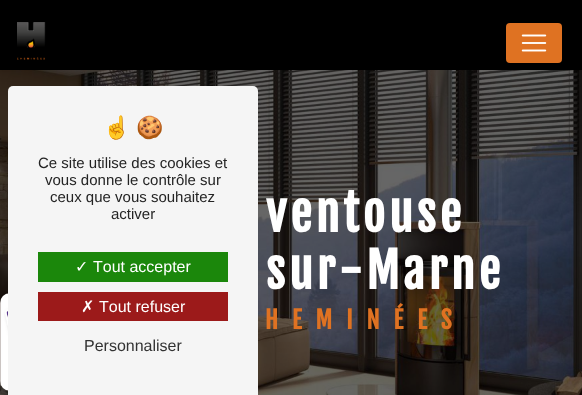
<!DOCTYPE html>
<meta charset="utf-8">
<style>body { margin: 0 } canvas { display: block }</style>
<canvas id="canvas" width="582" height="395"></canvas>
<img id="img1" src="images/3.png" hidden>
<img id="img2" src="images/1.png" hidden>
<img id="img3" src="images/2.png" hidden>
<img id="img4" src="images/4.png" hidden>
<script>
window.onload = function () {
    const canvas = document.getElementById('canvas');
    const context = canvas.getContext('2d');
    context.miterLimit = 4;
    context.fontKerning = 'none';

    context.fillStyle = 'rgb(0, 0, 0)';
    context.fillRect(0, 0, 582, 395);
    context.drawImage(document.getElementById('img1'), 0, 70, 582, 325);
    context.fillStyle = 'rgb(245, 245, 245)';
    context.beginPath();
    context.roundRect(8, 86, 250, 309, [5, 5, 0, 0]);
    context.fill();
    context.fillStyle = 'rgb(27, 135, 11)';
    context.fillRect(38, 252, 190, 30);
    context.fillStyle = 'rgb(156, 26, 26)';
    context.fillRect(38, 292, 190, 29);
    context.drawImage(document.getElementById('img2'), 17, 22, 29, 38);
    context.fillStyle = 'rgb(223, 114, 34)';
    context.beginPath();
    context.roundRect(506, 23, 56, 40, 4);
    context.fill();
    context.drawImage(document.getElementById('img3'), 521, 34, 26, 18);
    context.drawImage(document.getElementById('img4'), 0, 293, 8, 98);
    context.font = '22px Noto Color Emoji';
    context.fillStyle = 'rgb(36, 36, 36)';
    context.fillText('☝', 103, 135);
    context.fillText('🍪', 136, 135);
    context.font = '15px Liberation Sans';
    context.fillText('Ce site utilise des cookies et', 38, 168);
    context.fillText('vous donne le contrôle sur', 45, 185);
    context.fillText('ceux que vous souhaitez', 50, 202);
    context.fillText('activer', 111, 219);
    context.font = '16px DejaVu Sans';
    context.fillStyle = 'rgb(255, 255, 255)';
    context.fillText('✓', 75, 272);
    context.font = '16px Liberation Sans';
    context.fillText('Tout accepter', 93, 272);
    context.font = '16px DejaVu Sans';
    context.fillText('✗', 81, 312);
    context.font = '16px Liberation Sans';
    context.fillText('Tout refuser', 99, 312);
    context.fillStyle = 'rgb(51, 51, 51)';
    context.fillText('Personnaliser', 84, 351);
    context.letterSpacing = '4px';
    context.font = 'bold 48px Fjalla One';
    context.fillStyle = 'rgb(255, 255, 255)';
    context.fillText('ventouse', 266, 232);
    context.fillText('sur-Marne', 266, 289);
    context.letterSpacing = '14px';
    context.font = 'bold 24px Fjalla One';
    context.fillStyle = 'rgb(223, 114, 34)';
    context.fillText('HEMINÉES', 265, 329);
};
</script>
